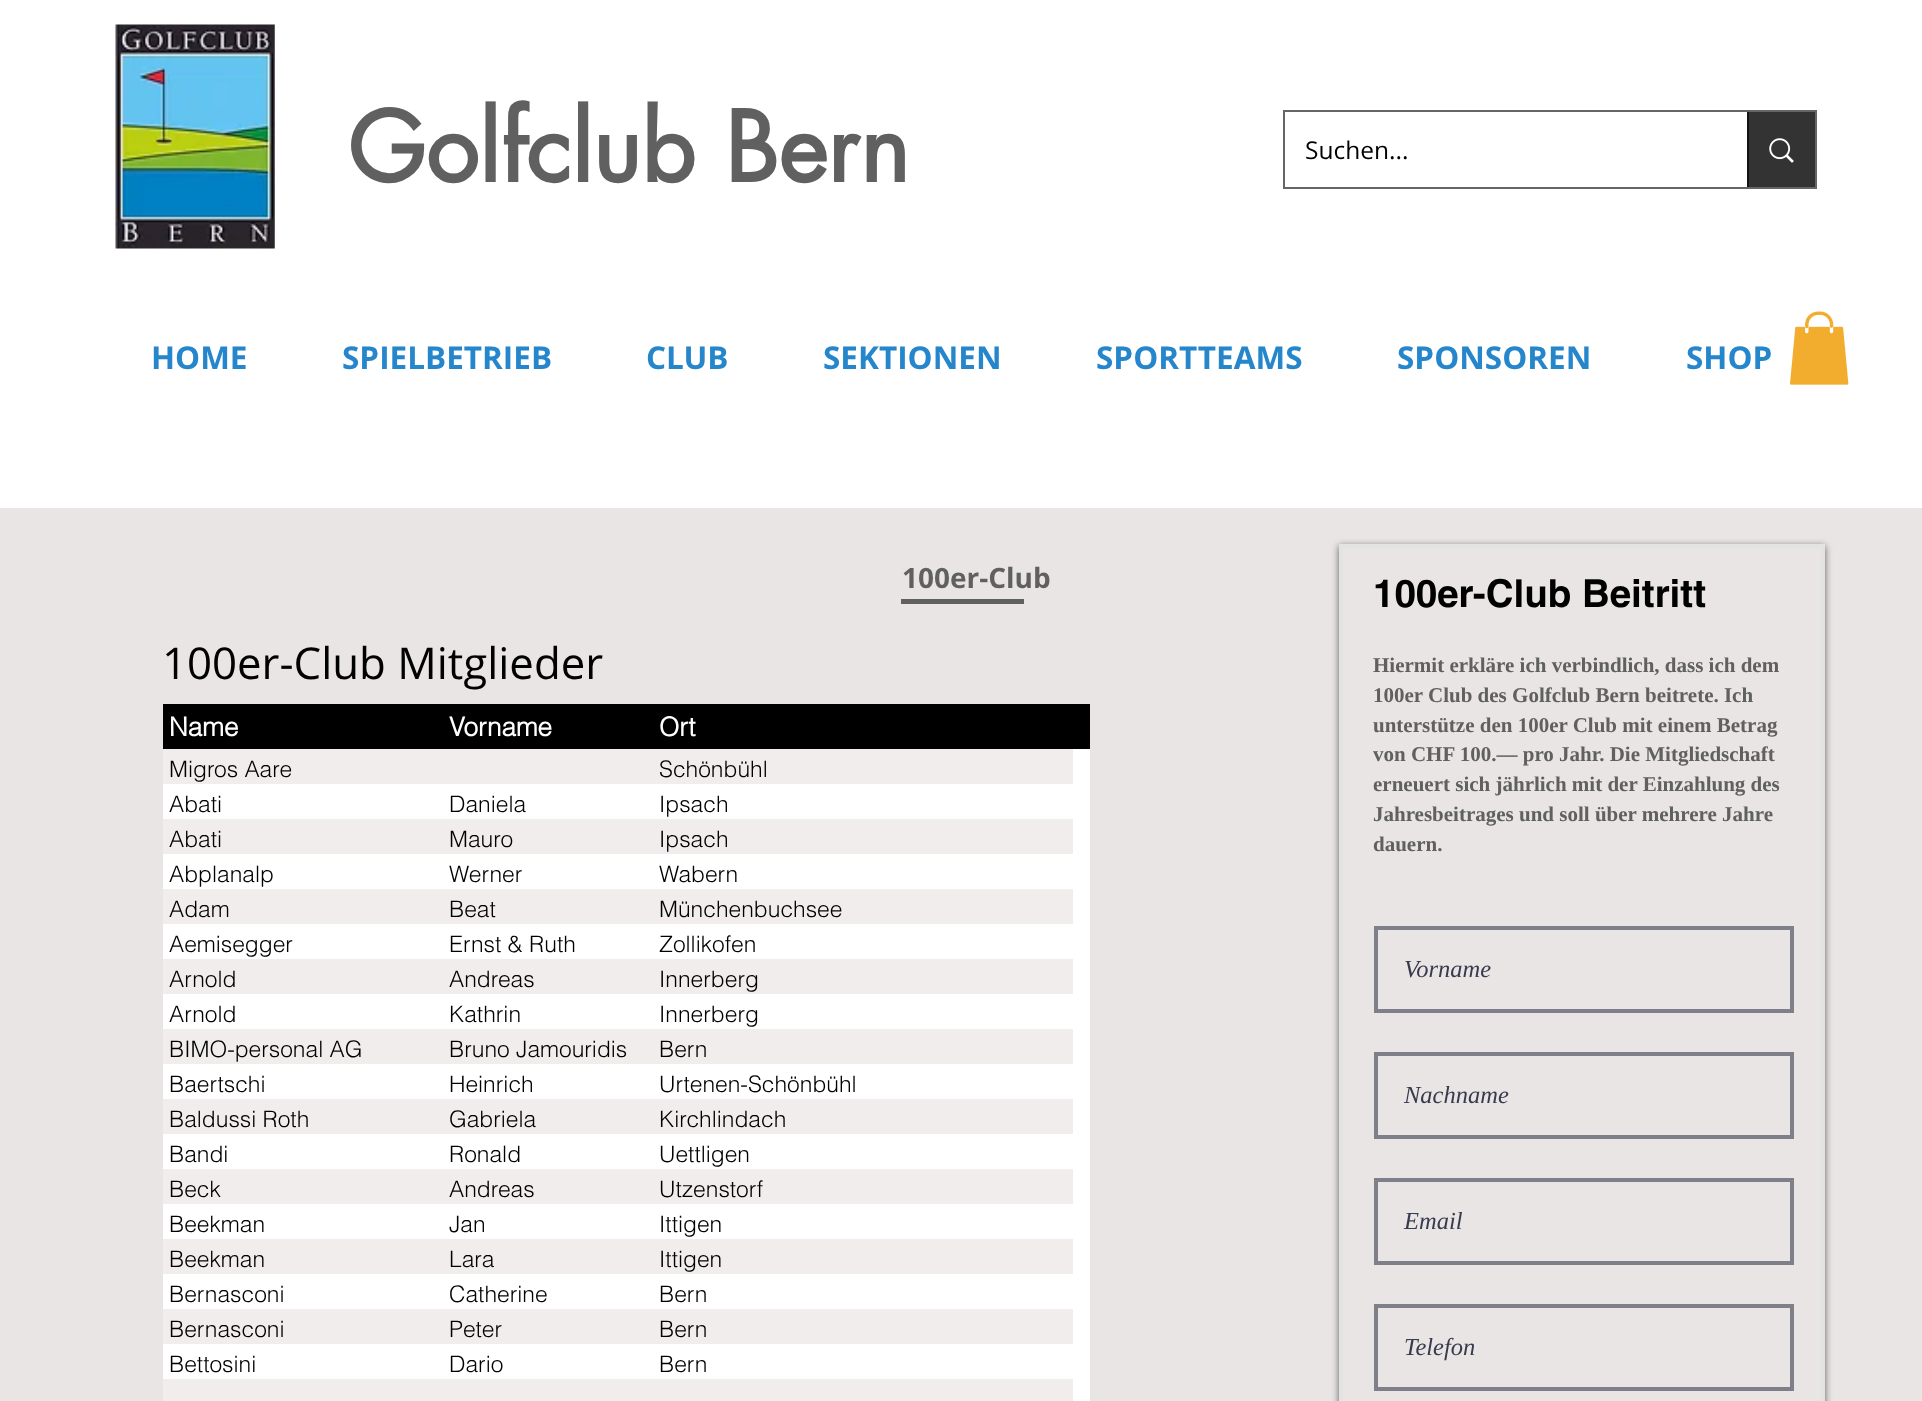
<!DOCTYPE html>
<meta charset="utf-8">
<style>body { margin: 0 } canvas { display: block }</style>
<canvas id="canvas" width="1922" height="1401"></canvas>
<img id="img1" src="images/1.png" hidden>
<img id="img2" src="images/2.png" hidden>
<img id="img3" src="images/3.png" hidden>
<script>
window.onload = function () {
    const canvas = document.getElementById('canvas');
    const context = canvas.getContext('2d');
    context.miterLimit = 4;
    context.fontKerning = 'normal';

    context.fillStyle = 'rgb(234, 229, 229)';
    context.fillRect(0, 0, 1922, 1401);
    context.fillStyle = 'rgb(255, 255, 255)';
    context.fillRect(0, 0, 1922, 508);
    context.drawImage(document.getElementById('img1'), 115, 24, 160, 225);
    context.strokeStyle = 'rgb(102, 102, 102)';
    context.lineWidth = 2;
    context.strokeRect(1284, 111, 532, 77);
    context.fillStyle = 'rgb(51, 51, 51)';
    context.fillRect(1749, 112, 66, 75);
    context.fillStyle = 'rgb(20, 20, 20)';
    context.fillRect(1747, 112, 2, 75);
    context.drawImage(document.getElementById('img2'), 1769, 138, 25, 25);
    context.drawImage(document.getElementById('img3'), 1790, 311, 59, 74);
    context.fillStyle = 'rgb(96, 96, 96)';
    context.fillRect(901, 599, 123, 5);
    context.save();
    context.beginPath();
    context.moveTo(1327, 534);
    context.lineTo(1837, 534);
    context.lineTo(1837, 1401);
    context.lineTo(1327, 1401);
    context.closePath();
    context.moveTo(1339, 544);
    context.lineTo(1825, 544);
    context.lineTo(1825, 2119);
    context.lineTo(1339, 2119);
    context.closePath();
    context.clip('evenodd');
    context.fillStyle = 'rgba(0, 0, 0, 0.6)';
    context.filter = 'blur(3.5px)';
    context.beginPath();
    context.rect(1339, 546, 486, 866);
    context.fill();
    context.filter = 'none';
    context.restore();
    context.strokeStyle = 'rgb(227, 227, 227)';
    context.lineWidth = 4;
    context.strokeRect(1341, 546, 482, 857);
    context.strokeStyle = 'rgb(127, 127, 138)';
    context.strokeRect(1376, 928, 416, 83);
    context.strokeRect(1376, 1054, 416, 83);
    context.strokeRect(1376, 1180, 416, 83);
    context.strokeRect(1376, 1306, 416, 83);
    context.fillStyle = 'rgb(255, 255, 255)';
    context.fillRect(163, 749, 927, 652);
    context.fillStyle = 'rgb(0, 0, 0)';
    context.fillRect(163, 704, 927, 45);
    context.fillStyle = 'rgb(241, 237, 237)';
    context.fillRect(163, 749, 910, 35);
    context.fillRect(163, 819, 910, 35);
    context.fillRect(163, 889, 910, 35);
    context.fillRect(163, 959, 910, 35);
    context.fillRect(163, 1029, 910, 35);
    context.fillRect(163, 1099, 910, 35);
    context.fillRect(163, 1169, 910, 35);
    context.fillRect(163, 1239, 910, 35);
    context.fillRect(163, 1309, 910, 35);
    context.fillRect(163, 1379, 910, 22);
    context.font = 'bold 94.5px futura';
    context.fillStyle = 'rgb(96, 96, 96)';
    context.fillText('Golfclub Bern', 348, 182);
    context.font = '24.5px Open Sans';
    context.fillStyle = 'rgb(0, 0, 0)';
    context.fillText('Suchen...', 1305, 159);
    context.font = 'bold 31.5px Open Sans';
    context.fillStyle = 'rgb(37, 134, 204)';
    context.fillText('HOME', 151, 369);
    context.fillText('SPIELBETRIEB', 342, 369);
    context.fillText('CLUB', 646, 369);
    context.fillText('SEKTIONEN', 823, 369);
    context.fillText('SPORTTEAMS', 1096, 369);
    context.fillText('SPONSOREN', 1397, 369);
    context.fillText('SHOP', 1686, 369);
    context.font = '43.75px Open Sans';
    context.fillStyle = 'rgb(0, 0, 0)';
    context.fillText('100er-Club Mitglieder', 162, 679);
    context.font = 'bold 28px Open Sans';
    context.fillStyle = 'rgb(96, 96, 96)';
    context.fillText('100er-Club', 902, 588);
    context.font = 'bold 38.5px "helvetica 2"';
    context.fillStyle = 'rgb(0, 0, 0)';
    context.fillText('100er-Club Beitritt', 1373, 607);
    context.font = 'bold 21px Liberation Serif';
    context.fillStyle = 'rgb(96, 96, 96)';
    context.fillText('Hiermit erkläre ich verbindlich, dass ich dem', 1373, 672);
    context.fillText('100er Club des Golfclub Bern beitrete. Ich', 1373, 702);
    context.fillText('unterstütze den 100er Club mit einem Betrag', 1373, 732);
    context.fillText('von CHF 100.— pro Jahr. Die Mitgliedschaft', 1373, 761);
    context.fillText('erneuert sich jährlich mit der Einzahlung des', 1373, 791);
    context.fillText('Jahresbeitrages und soll über mehrere Jahre', 1373, 821);
    context.fillText('dauern.', 1373, 851);
    context.font = 'italic 24.5px Liberation Serif';
    context.fillStyle = 'rgb(55, 59, 77)';
    context.fillText('Vorname', 1404, 977);
    context.fillText('Nachname', 1404, 1103);
    context.fillText('Email', 1404, 1229);
    context.fillText('Telefon', 1404, 1355);
    context.font = 'bold 26px helvetica';
    context.fillStyle = 'rgb(255, 255, 255)';
    context.fillText('Name', 169, 736);
    context.fillText('Vorname', 449, 736);
    context.fillText('Ort', 659, 736);
    context.font = '300 22.75px helvetica';
    context.fillStyle = 'rgb(0, 0, 0)';
    context.fillText('Migros Aare', 169, 777);
    context.fillText('Schönbühl', 659, 777);
    context.fillText('Abati', 169, 812);
    context.fillText('Daniela', 449, 812);
    context.fillText('Ipsach', 659, 812);
    context.fillText('Abati', 169, 847);
    context.fillText('Mauro', 449, 847);
    context.fillText('Ipsach', 659, 847);
    context.fillText('Abplanalp', 169, 882);
    context.fillText('Werner', 449, 882);
    context.fillText('Wabern', 659, 882);
    context.fillText('Adam', 169, 917);
    context.fillText('Beat', 449, 917);
    context.fillText('Münchenbuchsee', 659, 917);
    context.fillText('Aemisegger', 169, 952);
    context.fillText('Ernst & Ruth', 449, 952);
    context.fillText('Zollikofen', 659, 952);
    context.fillText('Arnold', 169, 987);
    context.fillText('Andreas', 449, 987);
    context.fillText('Innerberg', 659, 987);
    context.fillText('Arnold', 169, 1022);
    context.fillText('Kathrin', 449, 1022);
    context.fillText('Innerberg', 659, 1022);
    context.fillText('BIMO-personal AG', 169, 1057);
    context.fillText('Bruno Jamouridis', 449, 1057);
    context.fillText('Bern', 659, 1057);
    context.fillText('Baertschi', 169, 1092);
    context.fillText('Heinrich', 449, 1092);
    context.fillText('Urtenen-Schönbühl', 659, 1092);
    context.fillText('Baldussi Roth', 169, 1127);
    context.fillText('Gabriela', 449, 1127);
    context.fillText('Kirchlindach', 659, 1127);
    context.fillText('Bandi', 169, 1162);
    context.fillText('Ronald', 449, 1162);
    context.fillText('Uettligen', 659, 1162);
    context.fillText('Beck', 169, 1197);
    context.fillText('Andreas', 449, 1197);
    context.fillText('Utzenstorf', 659, 1197);
    context.fillText('Beekman', 169, 1232);
    context.fillText('Jan', 449, 1232);
    context.fillText('Ittigen', 659, 1232);
    context.fillText('Beekman', 169, 1267);
    context.fillText('Lara', 449, 1267);
    context.fillText('Ittigen', 659, 1267);
    context.fillText('Bernasconi', 169, 1302);
    context.fillText('Catherine', 449, 1302);
    context.fillText('Bern', 659, 1302);
    context.fillText('Bernasconi', 169, 1337);
    context.fillText('Peter', 449, 1337);
    context.fillText('Bern', 659, 1337);
    context.fillText('Bettosini', 169, 1372);
    context.fillText('Dario', 449, 1372);
    context.fillText('Bern', 659, 1372);
};
</script>
